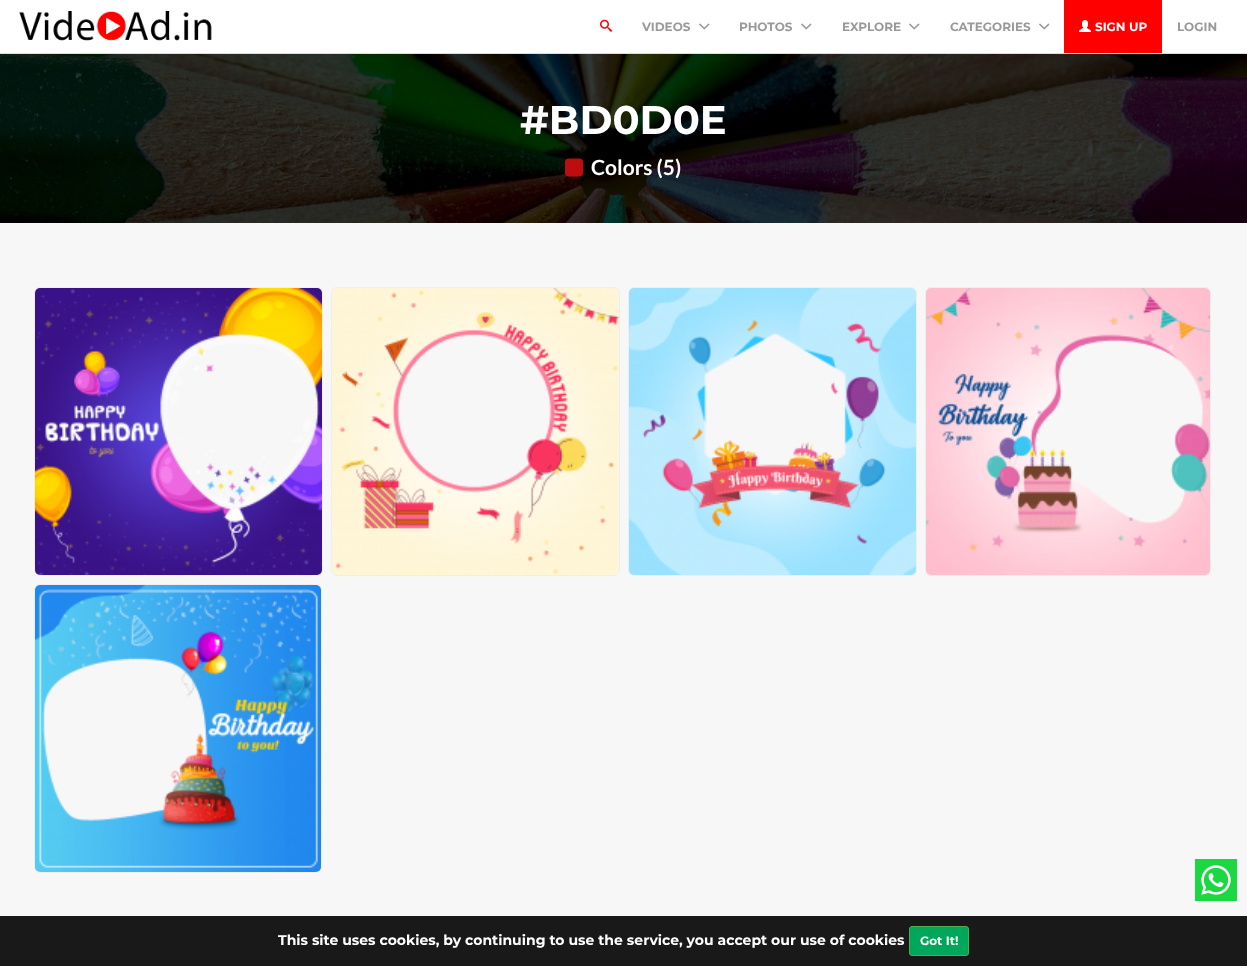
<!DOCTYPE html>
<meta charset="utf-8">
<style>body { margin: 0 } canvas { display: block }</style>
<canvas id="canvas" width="1247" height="966"></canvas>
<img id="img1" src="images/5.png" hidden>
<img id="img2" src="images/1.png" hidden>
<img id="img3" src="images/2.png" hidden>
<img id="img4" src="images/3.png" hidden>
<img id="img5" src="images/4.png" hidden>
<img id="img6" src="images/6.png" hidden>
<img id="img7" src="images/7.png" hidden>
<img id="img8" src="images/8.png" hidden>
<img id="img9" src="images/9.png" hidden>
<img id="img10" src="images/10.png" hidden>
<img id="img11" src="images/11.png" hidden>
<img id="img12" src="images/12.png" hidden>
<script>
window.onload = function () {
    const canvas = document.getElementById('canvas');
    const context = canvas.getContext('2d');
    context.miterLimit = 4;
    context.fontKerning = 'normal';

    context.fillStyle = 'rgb(247, 247, 247)';
    context.fillRect(0, 0, 1247, 966);
    context.drawImage(document.getElementById('img1'), 0, 53, 1247, 170);
    context.fillStyle = 'rgb(221, 221, 221)';
    context.filter = 'blur(0.5px)';
    context.beginPath();
    context.rect(0, 1, 1247, 53);
    context.fill();
    context.filter = 'none';
    context.fillStyle = 'rgb(255, 255, 255)';
    context.fillRect(0, 0, 1247, 53);
    context.drawImage(document.getElementById('img2'), 19, 11, 193, 30);
    context.drawImage(document.getElementById('img3'), 600, 19, 12, 13);
    context.drawImage(document.getElementById('img4'), 699, 23, 11, 7);
    context.drawImage(document.getElementById('img4'), 801, 23, 11, 7);
    context.drawImage(document.getElementById('img4'), 909, 23, 11, 7);
    context.drawImage(document.getElementById('img4'), 1039, 23, 11, 7);
    context.fillStyle = 'rgb(255, 0, 0)';
    context.fillRect(1064, 0, 98, 53);
    context.drawImage(document.getElementById('img5'), 1079, 20, 12, 12);
    context.drawImage(document.getElementById('img6'), 565, 158, 18, 19);
    context.beginPath();
    context.roundRect(34.5, 287.5, 288, 288, 5.5);
    context.strokeStyle = 'rgb(238, 238, 238)';
    context.stroke();
    context.drawImage(document.getElementById('img7'), 35, 288, 287, 287);
    context.beginPath();
    context.roundRect(331.5, 287.5, 288, 288, 5.5);
    context.stroke();
    context.drawImage(document.getElementById('img8'), 332, 288, 287, 287);
    context.beginPath();
    context.roundRect(628.5, 287.5, 288, 288, 5.5);
    context.stroke();
    context.drawImage(document.getElementById('img9'), 629, 288, 287, 287);
    context.beginPath();
    context.roundRect(925.5, 287.5, 285, 288, 5.5);
    context.stroke();
    context.drawImage(document.getElementById('img10'), 926, 288, 284, 287);
    context.beginPath();
    context.roundRect(34.5, 584.5, 287, 288, 5.5);
    context.stroke();
    context.drawImage(document.getElementById('img11'), 35, 585, 286, 287);
    context.drawImage(document.getElementById('img12'), 1195, 859, 42, 42);
    context.fillStyle = 'rgb(25, 25, 25)';
    context.fillRect(0, 916, 1247, 50);
    context.fillStyle = 'rgb(0, 166, 90)';
    context.beginPath();
    context.roundRect(909.5, 926.5, 59, 29, 2.5);
    context.fill();
    context.strokeStyle = 'rgb(76, 174, 76)';
    context.stroke();
    context.font = '100 12px Montserrat';
    context.fillStyle = 'rgb(153, 153, 153)';
    context.fillText('VIDEOS', 642, 31);
    context.fillText('PHOTOS', 739, 31);
    context.fillText('EXPLORE', 842, 31);
    context.fillText('CATEGORIES', 950, 31);
    context.fillStyle = 'rgb(255, 255, 255)';
    context.fillText('SIGN UP', 1095, 31);
    context.fillStyle = 'rgb(153, 153, 153)';
    context.fillText('LOGIN', 1177, 31);
    context.font = '100 40px Montserrat';
    context.fillStyle = 'rgb(255, 255, 255)';
    context.fillText('#BD0D0E', 520, 134);
    context.font = 'bold 21px Lato';
    context.fillText('Colors (5)', 591, 175);
    context.font = '100 14px Montserrat';
    context.fillText('This site uses cookies, by continuing to use the service, you accept our use of cookies', 278, 945);
    context.font = '100 12px Montserrat';
    context.fillText('Got It!', 920, 945);
};
</script>
